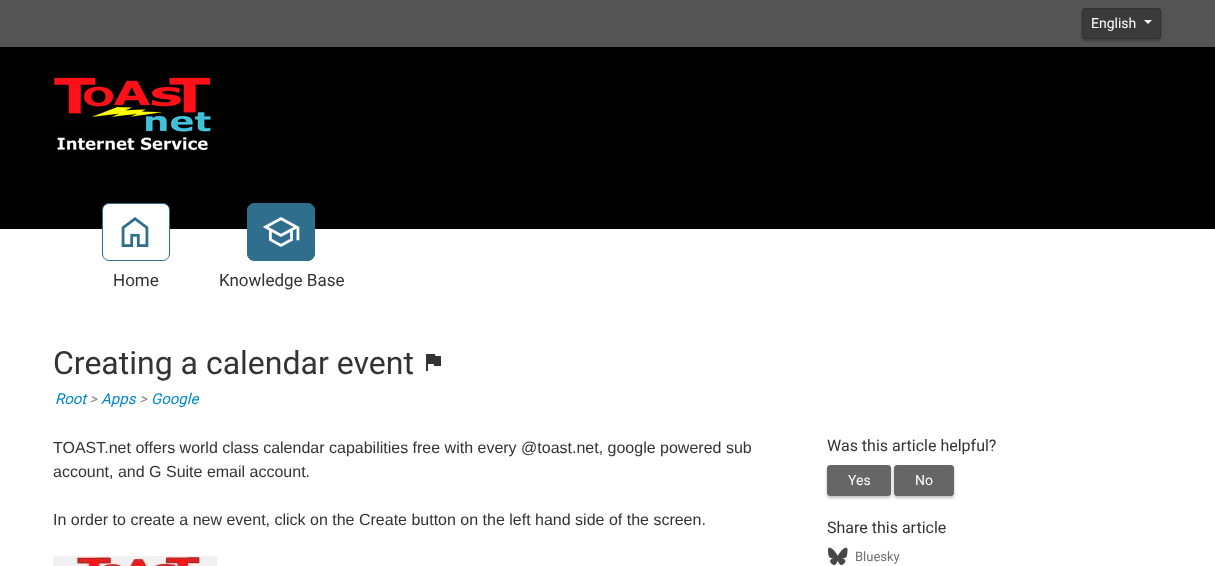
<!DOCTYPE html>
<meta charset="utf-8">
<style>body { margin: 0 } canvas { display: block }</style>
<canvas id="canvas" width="1215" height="566"></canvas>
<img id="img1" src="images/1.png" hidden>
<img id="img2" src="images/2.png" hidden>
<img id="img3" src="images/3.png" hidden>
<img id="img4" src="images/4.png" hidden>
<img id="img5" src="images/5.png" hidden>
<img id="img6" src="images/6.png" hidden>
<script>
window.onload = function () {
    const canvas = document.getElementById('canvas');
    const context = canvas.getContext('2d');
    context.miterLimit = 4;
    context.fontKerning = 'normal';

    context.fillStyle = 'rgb(255, 255, 255)';
    context.fillRect(0, 0, 1215, 566);
    context.fillStyle = 'rgb(84, 84, 84)';
    context.fillRect(0, 0, 1215, 47);
    context.fillStyle = 'rgba(0, 0, 0, 0.25)';
    context.filter = 'blur(1.5px)';
    context.beginPath();
    context.roundRect(1082, 10, 79, 31, 3);
    context.fill();
    context.filter = 'none';
    context.fillStyle = 'rgb(58, 58, 58)';
    context.beginPath();
    context.roundRect(1082.5, 8.5, 78, 30, 2.5);
    context.fill();
    context.strokeStyle = 'rgb(50, 50, 50)';
    context.stroke();
    context.fillStyle = 'rgb(255, 255, 255)';
    context.beginPath();
    context.moveTo(1144, 20);
    context.lineTo(1152, 20);
    context.lineTo(1148, 24);
    context.closePath();
    context.fill();
    context.fillStyle = 'rgb(0, 0, 0)';
    context.fillRect(0, 47, 1215, 182);
    context.drawImage(document.getElementById('img1'), 53, 77, 158, 74);
    context.fillStyle = 'rgb(255, 255, 255)';
    context.beginPath();
    context.roundRect(102.5, 203.5, 67, 57, 6.5);
    context.fill();
    context.strokeStyle = 'rgb(47, 110, 141)';
    context.stroke();
    context.drawImage(document.getElementById('img2'), 121, 217, 28, 30);
    context.fillStyle = 'rgb(47, 110, 141)';
    context.beginPath();
    context.roundRect(247.5, 203.5, 67, 57, 6.5);
    context.fill();
    context.stroke();
    context.drawImage(document.getElementById('img3'), 262, 217, 38, 30);
    context.drawImage(document.getElementById('img4'), 426, 354, 15, 17);
    context.drawImage(document.getElementById('img5'), 53, 556, 164, 10);
    context.fillStyle = 'rgba(0, 0, 0, 0.25)';
    context.filter = 'blur(1.5px)';
    context.beginPath();
    context.roundRect(827, 467, 64, 31, 3);
    context.fill();
    context.filter = 'none';
    context.fillStyle = 'rgb(102, 102, 102)';
    context.beginPath();
    context.roundRect(827.5, 465.5, 63, 30, 2.5);
    context.fill();
    context.strokeStyle = 'rgb(102, 102, 102)';
    context.stroke();
    context.fillStyle = 'rgba(0, 0, 0, 0.25)';
    context.filter = 'blur(1.5px)';
    context.beginPath();
    context.roundRect(894, 467, 60, 31, 3);
    context.fill();
    context.filter = 'none';
    context.fillStyle = 'rgb(102, 102, 102)';
    context.beginPath();
    context.roundRect(894.5, 465.5, 59, 30, 2.5);
    context.fill();
    context.stroke();
    context.drawImage(document.getElementById('img6'), 827, 547, 21, 18);
    context.font = '14px Roboto';
    context.fillStyle = 'rgb(255, 255, 255)';
    context.fillText('English', 1091, 28);
    context.font = '17px Roboto';
    context.fillStyle = 'rgb(51, 51, 51)';
    context.fillText('Home', 113, 286);
    context.fillText('Knowledge Base', 219, 286);
    context.font = '32px Roboto';
    context.fillText('Creating a calendar event', 53, 374);
    context.font = 'italic 15px Roboto';
    context.fillStyle = 'rgb(0, 136, 204)';
    context.fillText('Root', 55, 404);
    context.fillStyle = 'rgb(136, 136, 136)';
    context.fillText('>', 89, 404);
    context.fillStyle = 'rgb(0, 136, 204)';
    context.fillText('Apps', 101, 404);
    context.fillStyle = 'rgb(136, 136, 136)';
    context.fillText('>', 139, 404);
    context.fillStyle = 'rgb(0, 136, 204)';
    context.fillText('Google', 151, 404);
    context.font = '16px Liberation Sans';
    context.fillStyle = 'rgb(51, 51, 51)';
    context.fillText('TOAST.net offers world class calendar capabilities free with every @toast.net, google powered sub', 53, 453);
    context.fillText('account, and G Suite email account.', 53, 477);
    context.fillText('In order to create a new event, click on the Create button on the left hand side of the screen.', 53, 525);
    context.font = '16px Roboto';
    context.fillText('Was this article helpful?', 827, 451);
    context.font = '14px Roboto';
    context.fillStyle = 'rgb(255, 255, 255)';
    context.fillText('Yes', 848, 485);
    context.fillText('No', 915, 485);
    context.font = '16px Roboto';
    context.fillStyle = 'rgb(51, 51, 51)';
    context.fillText('Share this article', 827, 533);
    context.font = '13px Roboto';
    context.fillStyle = 'rgb(112, 112, 112)';
    context.fillText('Bluesky', 855, 561);
};
</script>
